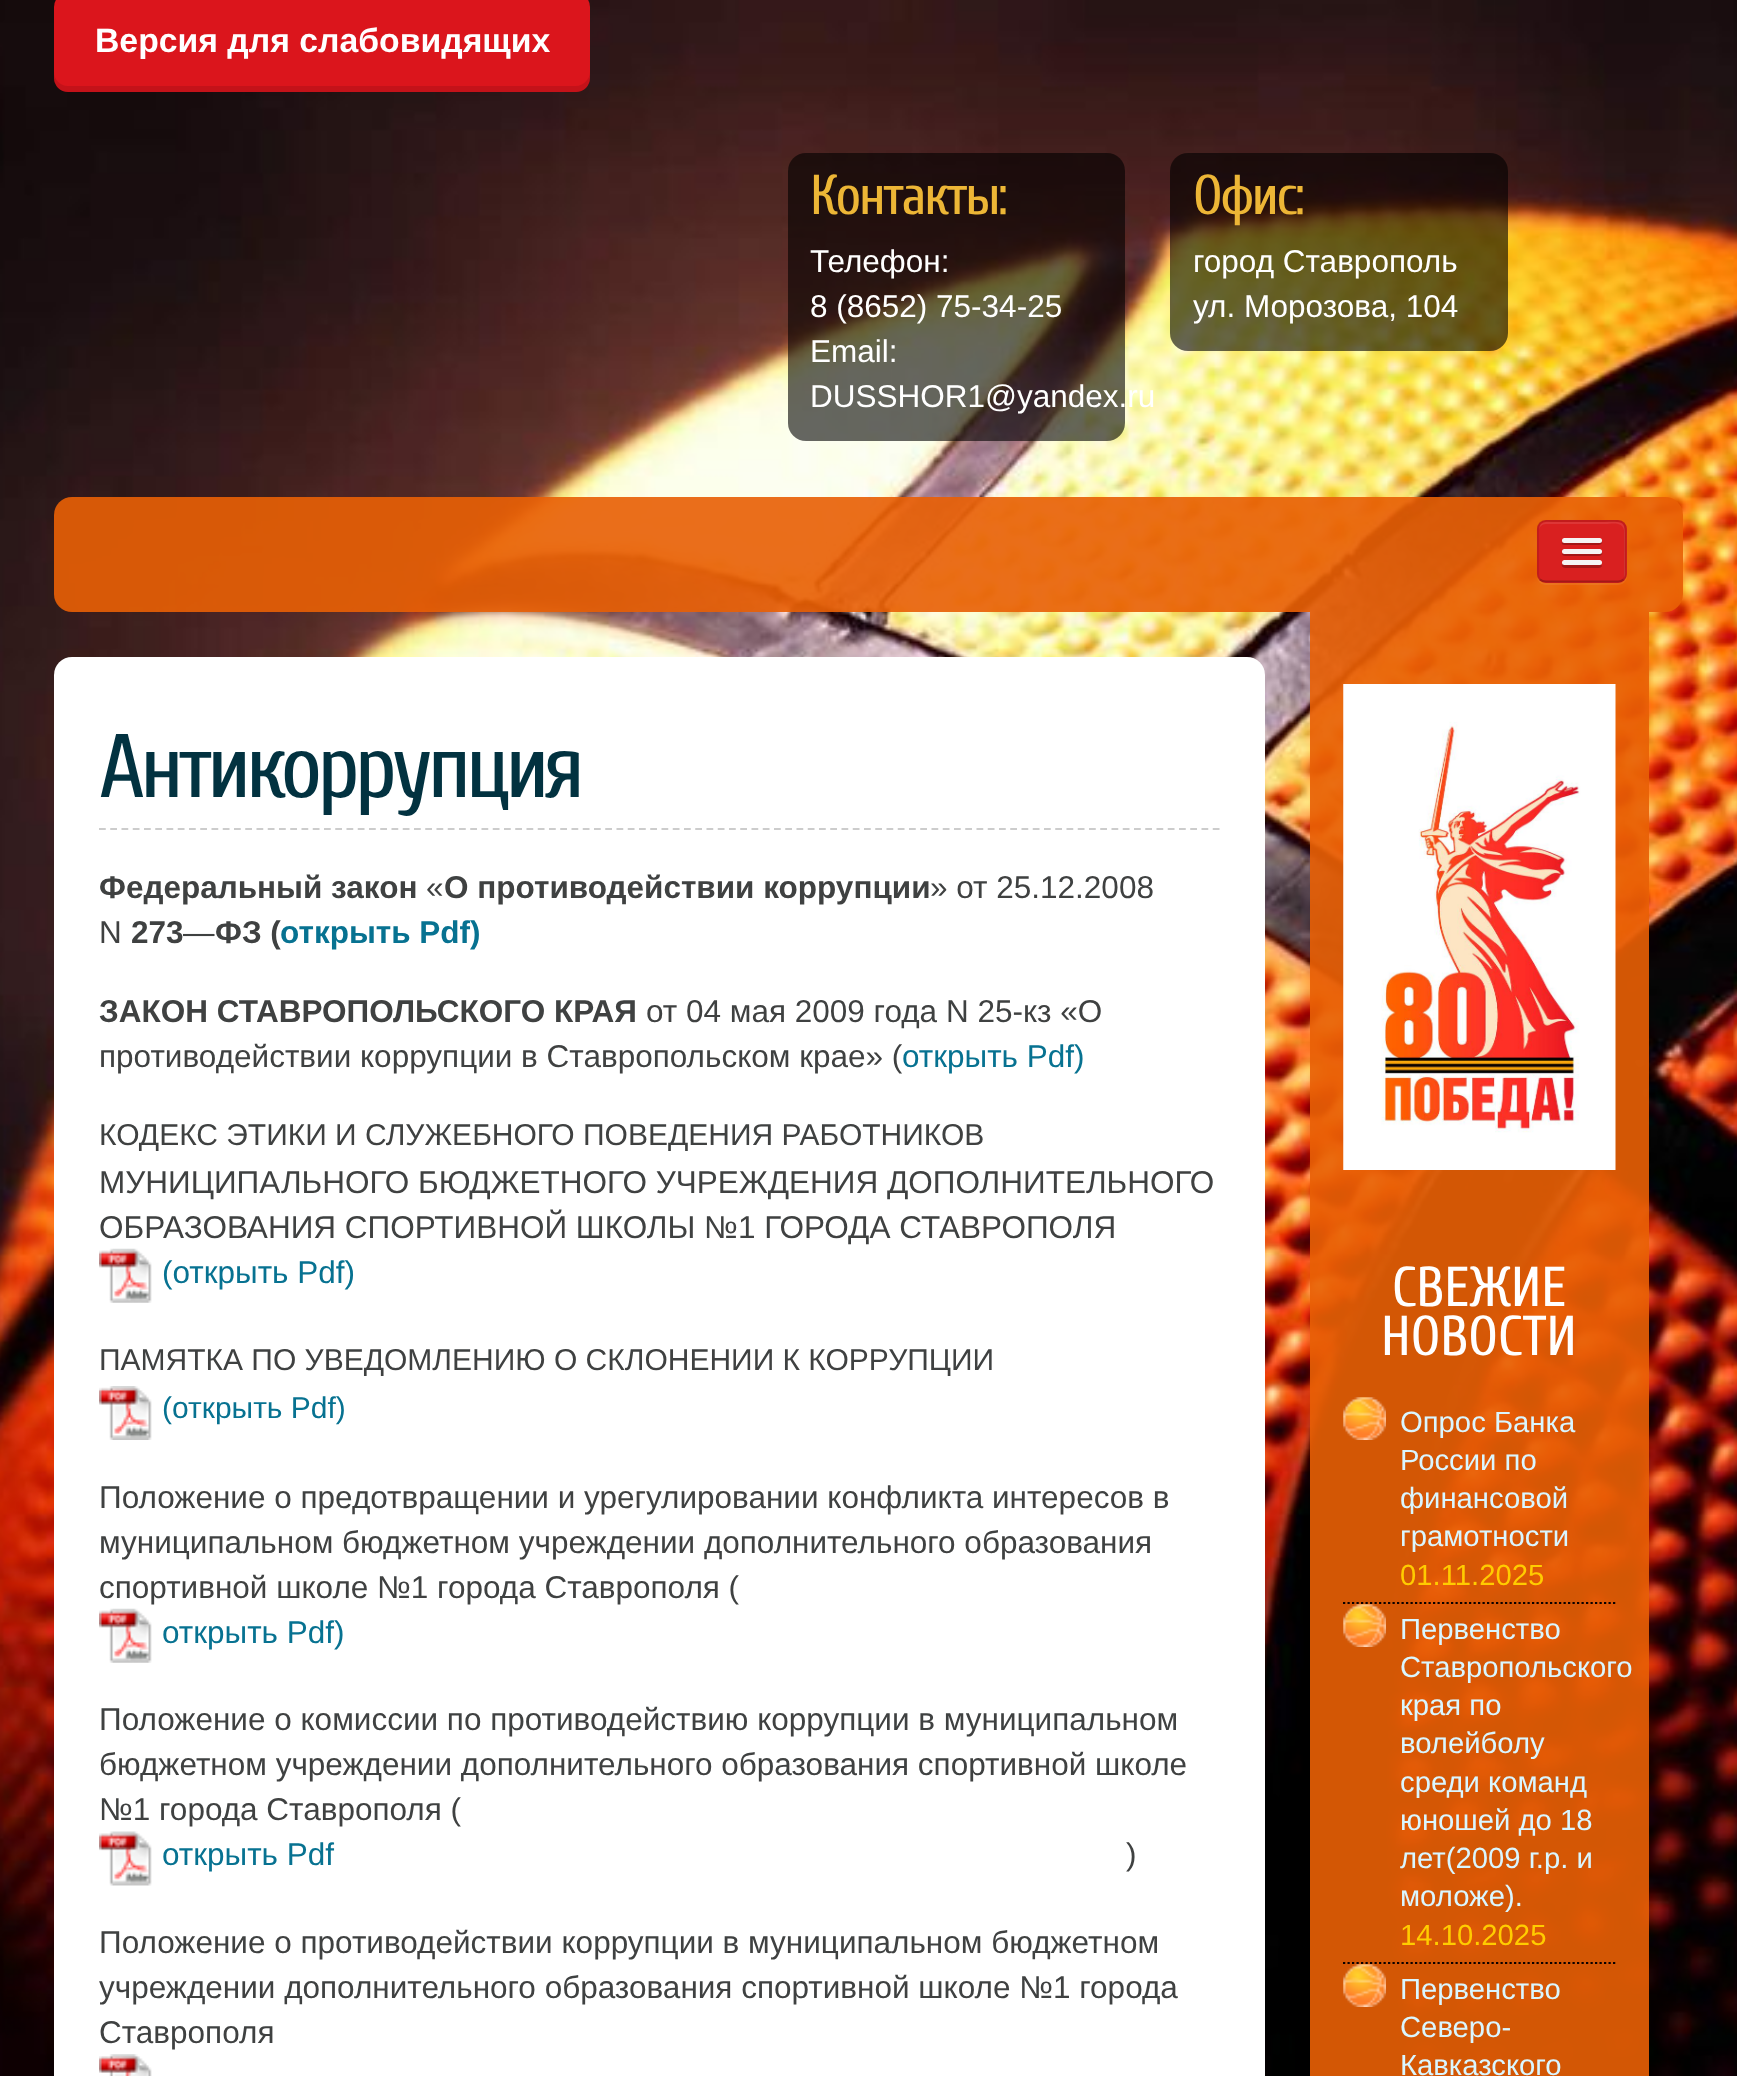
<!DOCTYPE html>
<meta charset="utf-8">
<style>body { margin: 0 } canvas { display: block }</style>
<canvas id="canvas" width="1737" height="2076"></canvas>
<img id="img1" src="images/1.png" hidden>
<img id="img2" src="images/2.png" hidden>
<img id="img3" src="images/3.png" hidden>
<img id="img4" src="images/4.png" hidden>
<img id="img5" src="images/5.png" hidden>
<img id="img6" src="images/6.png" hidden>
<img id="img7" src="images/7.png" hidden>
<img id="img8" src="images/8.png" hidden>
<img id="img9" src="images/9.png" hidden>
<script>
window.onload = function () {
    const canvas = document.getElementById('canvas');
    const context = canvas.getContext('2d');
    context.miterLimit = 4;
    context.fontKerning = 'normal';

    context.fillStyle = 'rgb(255, 255, 255)';
    context.fillRect(0, 0, 1737, 2076);
    context.drawImage(document.getElementById('img1'), 0, 0, 1737, 2076);
    context.fillStyle = 'rgb(219, 21, 28)';
    context.beginPath();
    context.roundRect(54, -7, 536, 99, 14);
    context.fill();
    context.fillStyle = 'rgba(0, 0, 0, 0.1)';
    context.beginPath();
    context.moveTo(54, 72);
    context.lineTo(54, 78);
    context.bezierCurveTo(54, 86, 60, 92, 68, 92);
    context.lineTo(576, 92);
    context.bezierCurveTo(584, 92, 590, 86, 590, 78);
    context.lineTo(590, 72);
    context.bezierCurveTo(590, 79, 583, 86, 576, 86);
    context.lineTo(68, 86);
    context.bezierCurveTo(60, 86, 54, 79, 54, 72);
    context.closePath();
    context.fill();
    context.fillStyle = 'rgba(0, 0, 0, 0.6)';
    context.beginPath();
    context.roundRect(788, 153, 337, 288, 18);
    context.fill();
    context.beginPath();
    context.roundRect(1170, 153, 338, 198, 18);
    context.fill();
    context.fillStyle = 'rgba(232, 96, 6, 0.91)';
    context.beginPath();
    context.roundRect(54, 497, 1629, 115, 18);
    context.fill();
    context.fillStyle = 'rgba(255, 255, 255, 0.07)';
    context.beginPath();
    context.moveTo(1537, 576);
    context.bezierCurveTo(1537, 581, 1541, 585, 1546, 585);
    context.lineTo(1618, 585);
    context.bezierCurveTo(1623, 585, 1627, 581, 1627, 576);
    context.lineTo(1627, 529);
    context.lineTo(1627, 574);
    context.bezierCurveTo(1627, 579, 1623, 583, 1618, 583);
    context.lineTo(1546, 583);
    context.bezierCurveTo(1542, 583, 1538, 580, 1537, 576);
    context.closePath();
    context.fill();
    context.fillStyle = 'rgb(217, 32, 32)';
    context.beginPath();
    context.roundRect(1537, 520, 90, 63, 9);
    context.fill();
    context.fillStyle = 'rgb(221, 54, 54)';
    context.beginPath();
    context.moveTo(1546, 524);
    context.lineTo(1606, 524);
    context.bezierCurveTo(1611, 524, 1622, 521, 1624, 530);
    context.lineTo(1624, 578);
    context.bezierCurveTo(1626, 575, 1625, 570, 1625, 566);
    context.lineTo(1625, 552);
    context.bezierCurveTo(1625, 517, 1629, 522, 1594, 522);
    context.lineTo(1558, 522);
    context.bezierCurveTo(1549, 522, 1539, 519, 1539, 531);
    context.bezierCurveTo(1539, 527, 1542, 524, 1546, 524);
    context.closePath();
    context.fill();
    context.beginPath();
    context.moveTo(1623.5, 579.5);
    context.bezierCurveTo(1622, 581, 1620, 581.5, 1618, 581.5);
    context.lineTo(1546, 581.5);
    context.bezierCurveTo(1543.5, 581.5, 1541.5, 581, 1540, 579.5);
    context.strokeStyle = 'rgba(0, 0, 0, 0.25)';
    context.lineWidth = 2.2;
    context.stroke();
    context.beginPath();
    context.moveTo(1540, 579.5);
    context.bezierCurveTo(1538.5, 578, 1538, 576, 1538, 574);
    context.lineTo(1538, 529);
    context.bezierCurveTo(1538, 526.5, 1538.5, 524.5, 1540, 523);
    context.bezierCurveTo(1541.5, 521.5, 1543.5, 521, 1546, 521);
    context.lineTo(1618, 521);
    context.bezierCurveTo(1620, 521, 1622, 521.5, 1623.5, 523);
    context.bezierCurveTo(1625, 524.5, 1625.5, 526.5, 1625.5, 529);
    context.lineTo(1625.5, 574);
    context.bezierCurveTo(1625.5, 576, 1625, 578, 1623.5, 579.5);
    context.strokeStyle = 'rgba(0, 0, 0, 0.1)';
    context.stroke();
    context.fillStyle = 'rgb(163, 24, 24)';
    context.beginPath();
    context.moveTo(1562, 542);
    context.bezierCurveTo(1560, 546, 1569, 545, 1570, 545);
    context.lineTo(1594, 545);
    context.bezierCurveTo(1594, 545, 1604, 546, 1602, 541);
    context.lineTo(1600, 542);
    context.bezierCurveTo(1596, 543, 1563, 543, 1562, 542);
    context.closePath();
    context.fill();
    context.fillStyle = 'rgb(245, 245, 245)';
    context.beginPath();
    context.roundRect(1562, 538, 40, 5, 2.5);
    context.fill();
    context.fillStyle = 'rgb(163, 24, 24)';
    context.beginPath();
    context.moveTo(1562, 553);
    context.bezierCurveTo(1561, 557, 1569, 556, 1570, 556);
    context.lineTo(1594, 556);
    context.bezierCurveTo(1595, 556, 1604, 557, 1602, 552);
    context.lineTo(1600, 553);
    context.bezierCurveTo(1596, 554, 1563, 554, 1562, 553);
    context.closePath();
    context.fill();
    context.fillStyle = 'rgb(245, 245, 245)';
    context.beginPath();
    context.roundRect(1562, 549, 40, 5, 2.5);
    context.fill();
    context.fillStyle = 'rgb(163, 24, 24)';
    context.beginPath();
    context.moveTo(1562, 564);
    context.bezierCurveTo(1560, 569, 1570, 568, 1570, 568);
    context.lineTo(1594, 568);
    context.bezierCurveTo(1594, 568, 1605, 569, 1601, 564);
    context.lineTo(1600, 565);
    context.bezierCurveTo(1597, 565, 1564, 565, 1562, 564);
    context.closePath();
    context.fill();
    context.fillStyle = 'rgb(245, 245, 245)';
    context.beginPath();
    context.roundRect(1562, 560, 40, 5, 2.5);
    context.fill();
    context.fillStyle = 'rgb(255, 255, 255)';
    context.beginPath();
    context.roundRect(54, 657, 1211, 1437, 18);
    context.fill();
    context.beginPath();
    context.moveTo(99, 829);
    context.lineTo(1219.5, 829);
    context.strokeStyle = 'rgb(204, 204, 204)';
    context.setLineDash([6.75, 4.5]);
    context.stroke();
    context.drawImage(document.getElementById('img2'), 99, 1248, 53, 55);
    context.drawImage(document.getElementById('img3'), 99, 1386, 53, 54);
    context.drawImage(document.getElementById('img2'), 99, 1608, 53, 55);
    context.drawImage(document.getElementById('img4'), 99, 1831, 53, 55);
    context.drawImage(document.getElementById('img5'), 99, 2054, 53, 22);
    context.fillStyle = 'rgba(232, 96, 6, 0.91)';
    context.fillRect(1310, 612, 339, 1464);
    context.drawImage(document.getElementById('img6'), 1343, 684, 273, 486);
    context.drawImage(document.getElementById('img7'), 1343, 1397, 43, 43);
    context.beginPath();
    context.moveTo(1343, 1603);
    context.lineTo(1615.5, 1603);
    context.strokeStyle = 'rgb(10, 0, 0)';
    context.setLineDash([2.25, 2.25]);
    context.stroke();
    context.drawImage(document.getElementById('img8'), 1343, 1604, 43, 43);
    context.beginPath();
    context.moveTo(1343, 1963);
    context.lineTo(1615.5, 1963);
    context.stroke();
    context.drawImage(document.getElementById('img9'), 1343, 1964, 43, 43);
    context.font = 'bold 33.75px Liberation Sans';
    context.fillStyle = 'rgb(255, 255, 255)';
    context.fillText('Версия для слабовидящих', 95, 52);
    context.letterSpacing = '-2.25px';
    context.font = '56px Cuprum';
    context.fillStyle = 'rgb(237, 182, 54)';
    context.fillText('Контакты:', 810, 214);
    context.letterSpacing = '0px';
    context.font = '31.5px Liberation Sans';
    context.fillStyle = 'rgb(255, 255, 255)';
    context.fillText('Телефон:', 810, 272);
    context.fillText('8 (8652) 75-34-25', 810, 317);
    context.fillText('Email:', 810, 362);
    context.fillText('DUSSHOR1@yandex.ru', 810, 407);
    context.letterSpacing = '-2.25px';
    context.font = '56px Cuprum';
    context.fillStyle = 'rgb(237, 182, 54)';
    context.fillText('Офис:', 1193, 214);
    context.letterSpacing = '0px';
    context.font = '31.5px Liberation Sans';
    context.fillStyle = 'rgb(255, 255, 255)';
    context.fillText('город Ставрополь', 1193, 272);
    context.fillText('ул. Морозова, 104', 1193, 317);
    context.letterSpacing = '-4.5px';
    context.font = '90px Cuprum';
    context.fillStyle = 'rgb(2, 50, 64)';
    context.fillText('Антикоррупция', 99, 797);
    context.letterSpacing = '0px';
    context.font = 'bold 31.5px Liberation Sans';
    context.fillStyle = 'rgb(63, 65, 65)';
    context.fillText('Федеральный закон', 99, 898);
    context.font = '31.5px Liberation Sans';
    context.fillText('«', 426, 898);
    context.font = 'bold 31.5px Liberation Sans';
    context.fillText('О противодействии коррупции', 444, 898);
    context.font = '31.5px Liberation Sans';
    context.fillText('» от 25.12.2008', 930, 898);
    context.fillText('N', 99, 943);
    context.font = 'bold 31.5px Liberation Sans';
    context.fillText('273', 131, 943);
    context.font = '31.5px Liberation Sans';
    context.fillText('—', 183, 943);
    context.font = 'bold 31.5px Liberation Sans';
    context.fillText('ФЗ (', 215, 943);
    context.fillStyle = 'rgb(7, 114, 145)';
    context.fillText('открыть Pdf)', 280, 943);
    context.fillStyle = 'rgb(63, 65, 65)';
    context.fillText('ЗАКОН СТАВРОПОЛЬСКОГО КРАЯ', 99, 1022);
    context.font = '31.5px Liberation Sans';
    context.fillText('от 04 мая 2009 года N 25-кз «О', 646, 1022);
    context.fillText('противодействии коррупции в Ставропольском крае» (', 99, 1067);
    context.fillStyle = 'rgb(7, 114, 145)';
    context.fillText('открыть Pdf)', 902, 1067);
    context.font = '30px Liberation Sans';
    context.fillStyle = 'rgb(63, 65, 65)';
    context.fillText('КОДЕКС ЭТИКИ И СЛУЖЕБНОГО ПОВЕДЕНИЯ РАБОТНИКОВ', 99, 1145);
    context.font = '31.5px Liberation Sans';
    context.fillText('МУНИЦИПАЛЬНОГО БЮДЖЕТНОГО УЧРЕЖДЕНИЯ ДОПОЛНИТЕЛЬНОГО', 99, 1193);
    context.fillText('ОБРАЗОВАНИЯ СПОРТИВНОЙ ШКОЛЫ №1 ГОРОДА СТАВРОПОЛЯ', 99, 1238);
    context.fillStyle = 'rgb(7, 114, 145)';
    context.fillText('(открыть Pdf)', 162, 1283);
    context.font = '30px Liberation Sans';
    context.fillStyle = 'rgb(63, 65, 65)';
    context.fillText('ПАМЯТКА ПО УВЕДОМЛЕНИЮ О СКЛОНЕНИИ К КОРРУПЦИИ', 99, 1370);
    context.fillStyle = 'rgb(7, 114, 145)';
    context.fillText('(открыть Pdf)', 162, 1418);
    context.font = '31.5px Liberation Sans';
    context.fillStyle = 'rgb(63, 65, 65)';
    context.fillText('Положение о предотвращении и урегулировании конфликта интересов в', 99, 1508);
    context.fillText('муниципальном бюджетном учреждении дополнительного образования', 99, 1553);
    context.fillText('спортивной школе №1 города Ставрополя (', 99, 1598);
    context.fillStyle = 'rgb(7, 114, 145)';
    context.fillText('открыть Pdf)', 162, 1643);
    context.fillStyle = 'rgb(63, 65, 65)';
    context.fillText('Положение о комиссии по противодействию коррупции в муниципальном', 99, 1730);
    context.fillText('бюджетном учреждении дополнительного образования спортивной школе', 99, 1775);
    context.fillText('№1 города Ставрополя (', 99, 1820);
    context.fillStyle = 'rgb(7, 114, 145)';
    context.fillText('открыть Pdf', 162, 1865);
    context.fillStyle = 'rgb(63, 65, 65)';
    context.fillText(')', 1126, 1865);
    context.fillText('Положение о противодействии коррупции в муниципальном бюджетном', 99, 1953);
    context.fillText('учреждении дополнительного образования спортивной школе №1 города', 99, 1998);
    context.fillText('Ставрополя', 99, 2043);
    context.font = '56px Cuprum';
    context.fillStyle = 'rgb(255, 255, 255)';
    context.fillText('СВЕЖИЕ', 1392, 1306);
    context.fillText('НОВОСТИ', 1381, 1355);
    context.font = '29.25px Liberation Sans';
    context.fillStyle = 'rgb(218, 246, 255)';
    context.fillText('Опрос Банка', 1400, 1432);
    context.fillText('России по', 1400, 1470);
    context.fillText('финансовой', 1400, 1508);
    context.fillText('грамотности', 1400, 1546);
    context.fillStyle = 'rgb(255, 204, 0)';
    context.fillText('01.11.2025', 1400, 1585);
    context.fillStyle = 'rgb(218, 246, 255)';
    context.fillText('Первенство', 1400, 1639);
    context.fillText('Ставропольского', 1400, 1677);
    context.fillText('края по', 1400, 1715);
    context.fillText('волейболу', 1400, 1753);
    context.fillText('среди команд', 1400, 1792);
    context.fillText('юношей до 18', 1400, 1830);
    context.fillText('лет(2009 г.р. и', 1400, 1868);
    context.fillText('моложе).', 1400, 1906);
    context.fillStyle = 'rgb(255, 204, 0)';
    context.fillText('14.10.2025', 1400, 1945);
    context.fillStyle = 'rgb(218, 246, 255)';
    context.fillText('Первенство', 1400, 1999);
    context.fillText('Северо-', 1400, 2037);
    context.fillText('Кавказского', 1400, 2075);
};
</script>
